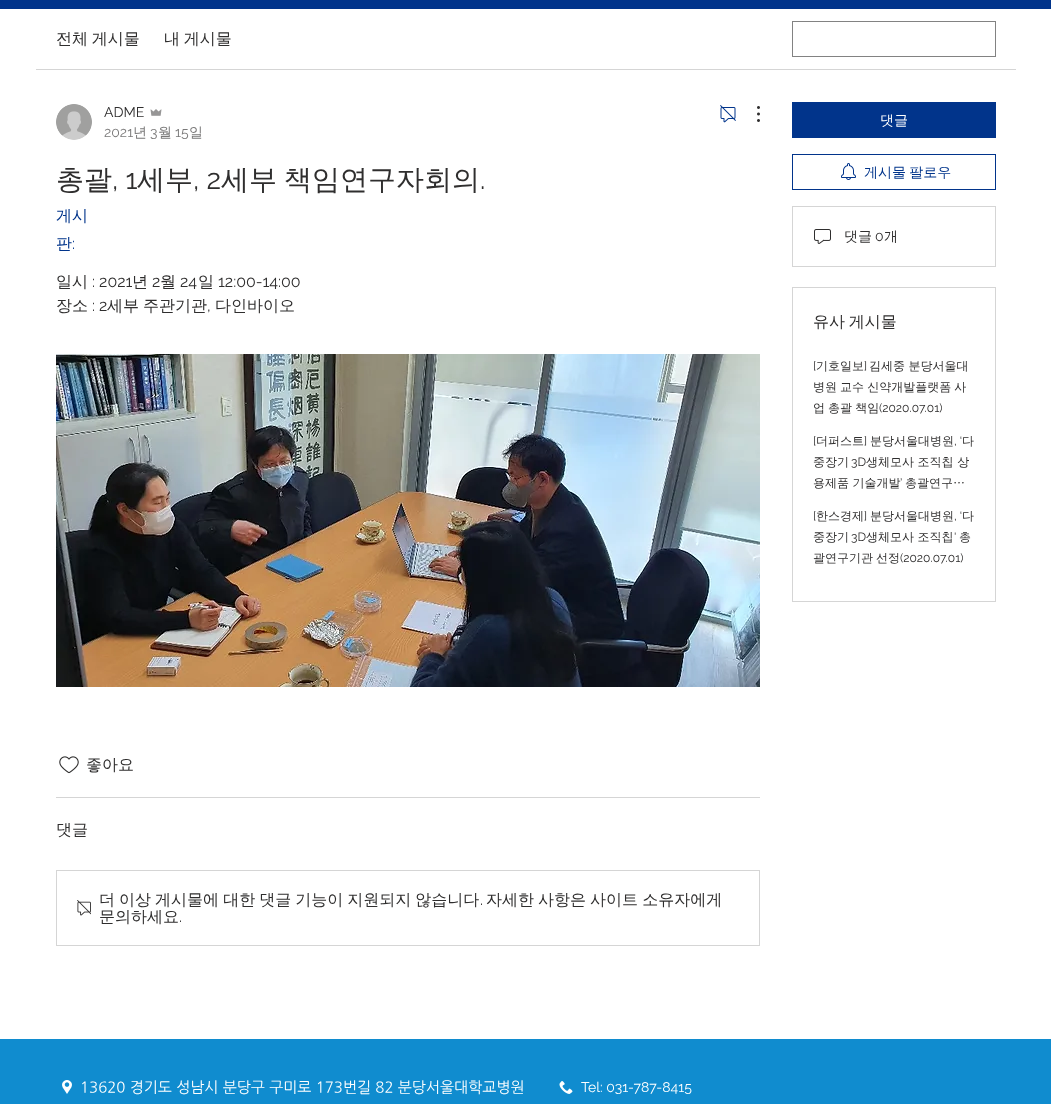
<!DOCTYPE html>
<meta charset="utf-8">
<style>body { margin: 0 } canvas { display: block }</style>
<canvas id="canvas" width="1051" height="1104"></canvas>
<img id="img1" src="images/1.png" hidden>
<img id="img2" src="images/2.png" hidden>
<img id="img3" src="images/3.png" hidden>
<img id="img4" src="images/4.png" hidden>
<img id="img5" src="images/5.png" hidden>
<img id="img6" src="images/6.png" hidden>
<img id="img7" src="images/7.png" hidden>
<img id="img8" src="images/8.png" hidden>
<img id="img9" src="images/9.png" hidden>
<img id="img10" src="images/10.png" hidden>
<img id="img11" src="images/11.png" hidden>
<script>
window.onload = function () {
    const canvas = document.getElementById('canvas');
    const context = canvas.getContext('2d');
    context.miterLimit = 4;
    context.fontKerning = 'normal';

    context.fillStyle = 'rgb(255, 255, 255)';
    context.fillRect(0, 0, 1051, 1104);
    context.fillStyle = 'rgb(1, 52, 139)';
    context.fillRect(0, 0, 1051, 9);
    context.fillStyle = 'rgb(213, 213, 213)';
    context.fillRect(36, 69, 980, 1);
    context.strokeStyle = 'rgb(130, 130, 130)';
    context.strokeRect(792.5, 21.5, 203, 35);
    context.drawImage(document.getElementById('img1'), 56, 104, 36, 36);
    context.drawImage(document.getElementById('img2'), 150, 109, 12, 7);
    context.drawImage(document.getElementById('img3'), 720, 105, 16, 18);
    context.drawImage(document.getElementById('img4'), 757, 106, 3, 16);
    context.drawImage(document.getElementById('img5'), 56, 354, 704, 333);
    context.drawImage(document.getElementById('img6'), 59, 756, 20, 18);
    context.fillRect(56, 797, 704, 1);
    context.strokeStyle = 'rgb(213, 213, 213)';
    context.strokeRect(56.5, 870.5, 703, 75);
    context.drawImage(document.getElementById('img7'), 77, 900, 14, 16);
    context.fillStyle = 'rgb(1, 52, 139)';
    context.fillRect(792, 102, 204, 36);
    context.strokeStyle = 'rgb(1, 52, 139)';
    context.strokeRect(792.5, 154.5, 203, 35);
    context.drawImage(document.getElementById('img8'), 841, 163, 15, 17);
    context.strokeStyle = 'rgb(213, 213, 213)';
    context.strokeRect(792.5, 206.5, 203, 60);
    context.drawImage(document.getElementById('img9'), 814, 229, 17, 15);
    context.strokeRect(792.5, 287.5, 203, 314);
    context.fillStyle = 'rgb(16, 140, 207)';
    context.fillRect(0, 1039, 1051, 65);
    context.drawImage(document.getElementById('img10'), 62, 1080, 10, 14);
    context.drawImage(document.getElementById('img11'), 559, 1081, 14, 13);
    context.wordSpacing = '-1px';
    context.font = '500 16px WenQuanYi Zen Hei';
    context.fillStyle = 'rgb(47, 46, 46)';
    context.fillText('전체 게시물', 56, 44);
    context.fillText('내 게시물', 164, 44);
    context.wordSpacing = '0px';
    context.font = '14px Raleway';
    context.fillText('ADME', 104, 117);
    context.fillStyle = 'rgb(122, 121, 121)';
    context.fillText('2021', 104, 137);
    context.font = '500 14px WenQuanYi Zen Hei';
    context.fillText('년', 133, 137);
    context.font = '14px Raleway';
    context.fillText('3', 150, 137);
    context.font = '500 14px WenQuanYi Zen Hei';
    context.fillText('월', 158, 137);
    context.font = '14px Raleway';
    context.fillText('15', 175, 137);
    context.font = '500 14px WenQuanYi Zen Hei';
    context.fillText('일', 189, 137);
    context.font = '500 28px WenQuanYi Zen Hei';
    context.fillStyle = 'rgb(47, 46, 46)';
    context.fillText('총괄', 56, 189);
    context.font = '28px Raleway';
    context.fillText(', 1', 112, 189);
    context.font = '500 28px WenQuanYi Zen Hei';
    context.fillText('세부', 137, 189);
    context.font = '28px Raleway';
    context.fillText(', 2', 193, 189);
    context.font = '500 28px WenQuanYi Zen Hei';
    context.fillText('세부', 221, 189);
    context.fillText('책임연구자회의', 284, 189);
    context.font = '28px Raleway';
    context.fillText('.', 480, 189);
    context.font = '500 16px WenQuanYi Zen Hei';
    context.fillStyle = 'rgb(1, 52, 139)';
    context.fillText('게시', 56, 221);
    context.fillText('판', 56, 249);
    context.font = '16px Raleway';
    context.fillText(':', 72, 249);
    context.font = '500 16px WenQuanYi Zen Hei';
    context.fillStyle = 'rgb(47, 46, 46)';
    context.fillText('일시', 56, 287);
    context.font = '16px Raleway';
    context.fillText(': 2021', 92, 287);
    context.font = '500 16px WenQuanYi Zen Hei';
    context.fillText('년', 132, 287);
    context.font = '16px Raleway';
    context.fillText('2', 152, 287);
    context.font = '500 16px WenQuanYi Zen Hei';
    context.fillText('월', 160, 287);
    context.font = '16px Raleway';
    context.fillText('24', 180, 287);
    context.font = '500 16px WenQuanYi Zen Hei';
    context.fillText('일', 198, 287);
    context.font = '16px Raleway';
    context.fillText('12:00-14:00', 218, 287);
    context.font = '500 16px WenQuanYi Zen Hei';
    context.fillText('장소', 56, 311);
    context.font = '16px Raleway';
    context.fillText(': 2', 92, 311);
    context.font = '500 16px WenQuanYi Zen Hei';
    context.fillText('세부', 107, 311);
    context.fillText('주관기관', 143, 311);
    context.font = '16px Raleway';
    context.fillText(',', 207, 311);
    context.font = '500 16px WenQuanYi Zen Hei';
    context.fillText('다인바이오', 215, 311);
    context.fillText('좋아요', 86, 770);
    context.fillText('댓글', 56, 835);
    context.wordSpacing = '-0.75px';
    context.fillText('더 이상 게시물에 대한 댓글 기능이 지원되지 않습니다', 99, 905);
    context.wordSpacing = '0px';
    context.font = '16px Raleway';
    context.fillText('.', 480, 905);
    context.wordSpacing = '-0.75px';
    context.font = '500 16px WenQuanYi Zen Hei';
    context.fillText('자세한 사항은 사이트 소유자에게', 486, 905);
    context.wordSpacing = '0px';
    context.fillText('문의하세요', 99, 922);
    context.font = '16px Raleway';
    context.fillText('.', 179, 922);
    context.font = '500 14px WenQuanYi Zen Hei';
    context.fillStyle = 'rgb(255, 255, 255)';
    context.fillText('댓글', 880, 125);
    context.wordSpacing = '-1px';
    context.fillStyle = 'rgb(1, 52, 139)';
    context.fillText('게시물 팔로우', 864, 177);
    context.wordSpacing = '0px';
    context.fillStyle = 'rgb(47, 46, 46)';
    context.fillText('댓글', 844, 241);
    context.font = '14px Raleway';
    context.fillText('0', 875, 241);
    context.font = '500 14px WenQuanYi Zen Hei';
    context.fillText('개', 884, 241);
    context.wordSpacing = '-1px';
    context.font = '500 16px WenQuanYi Zen Hei';
    context.fillText('유사 게시물', 813, 327);
    context.wordSpacing = '0px';
    context.font = '12px Raleway';
    context.fillText('[', 813, 370);
    context.font = '500 12px WenQuanYi Zen Hei';
    context.fillText('기호일보', 816, 370);
    context.font = '12px Raleway';
    context.fillText(']', 864, 370);
    context.font = '500 12px WenQuanYi Zen Hei';
    context.fillText('김세중 분당서울대', 869, 370);
    context.wordSpacing = '-0.5px';
    context.fillText('병원 교수 신약개발플랫폼 사', 813, 391);
    context.fillText('업 총괄 책임', 813, 412);
    context.wordSpacing = '0px';
    context.font = '12px Raleway';
    context.fillText('(2020.07.01)', 879, 412);
    context.fillText('[', 813, 445);
    context.font = '500 12px WenQuanYi Zen Hei';
    context.fillText('더퍼스트', 816, 445);
    context.font = '12px Raleway';
    context.fillText(']', 864, 445);
    context.font = '500 12px WenQuanYi Zen Hei';
    context.fillText('분당서울대병원', 870, 445);
    context.font = '12px Raleway';
    context.fillText(', ‘', 954, 445);
    context.font = '500 12px WenQuanYi Zen Hei';
    context.fillText('다', 962, 445);
    context.fillText('중장기', 813, 466);
    context.font = '12px Raleway';
    context.fillText('3D', 851, 466);
    context.font = '500 12px WenQuanYi Zen Hei';
    context.fillText('생체모사 조직칩 상', 866, 466);
    context.fillText('용제품 기술개발', 813, 487);
    context.font = '12px Raleway';
    context.fillText('’', 900, 487);
    context.font = '500 12px WenQuanYi Zen Hei';
    context.fillText('총괄연구…', 905, 487);
    context.font = '12px Raleway';
    context.fillText('[', 813, 520);
    context.font = '500 12px WenQuanYi Zen Hei';
    context.fillText('한스경제', 816, 520);
    context.font = '12px Raleway';
    context.fillText(']', 864, 520);
    context.font = '500 12px WenQuanYi Zen Hei';
    context.fillText('분당서울대병원', 870, 520);
    context.font = '12px Raleway';
    context.fillText(', ‘', 954, 520);
    context.font = '500 12px WenQuanYi Zen Hei';
    context.fillText('다', 962, 520);
    context.fillText('중장기', 813, 541);
    context.font = '12px Raleway';
    context.fillText('3D', 851, 541);
    context.font = '500 12px WenQuanYi Zen Hei';
    context.fillText('생체모사 조직칩', 866, 541);
    context.font = '12px Raleway';
    context.fillText('\'', 954, 541);
    context.font = '500 12px WenQuanYi Zen Hei';
    context.fillText('총', 959, 541);
    context.wordSpacing = '-0.5px';
    context.fillText('괄연구기관 선정', 813, 562);
    context.wordSpacing = '0px';
    context.font = '12px Raleway';
    context.fillText('(2020.07.01)', 900, 562);
    context.font = '15px NanumGothic';
    context.fillStyle = 'rgb(255, 255, 255)';
    context.fillText('13620 경기도 성남시 분당구 구미로 173번길 82 분당서울대학교병원', 80, 1092);
    context.font = '14px Raleway';
    context.fillText('Tel: 031-787-8415', 581, 1092);
};
</script>
